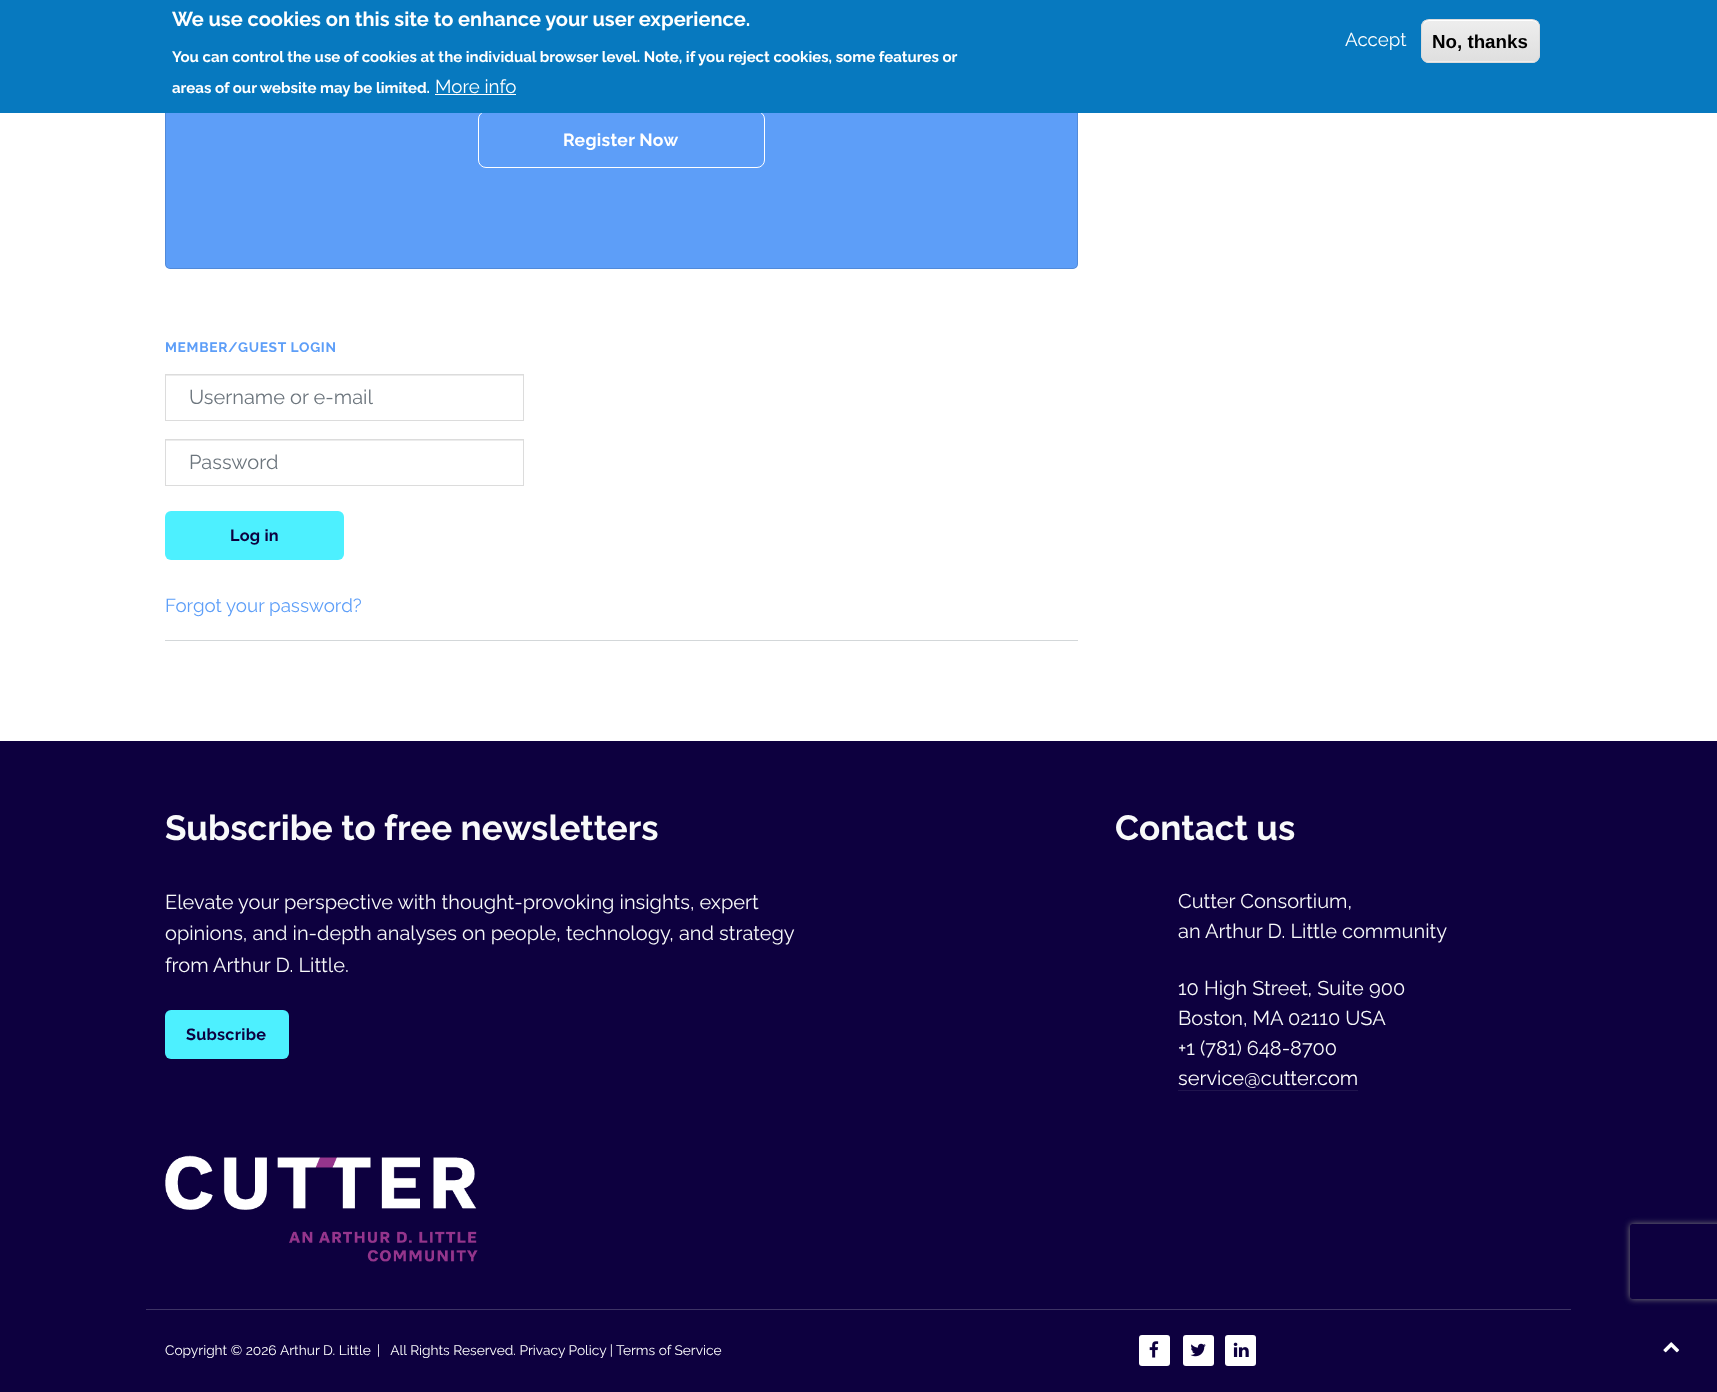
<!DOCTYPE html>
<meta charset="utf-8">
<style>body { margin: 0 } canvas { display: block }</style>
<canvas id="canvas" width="1717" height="1392"></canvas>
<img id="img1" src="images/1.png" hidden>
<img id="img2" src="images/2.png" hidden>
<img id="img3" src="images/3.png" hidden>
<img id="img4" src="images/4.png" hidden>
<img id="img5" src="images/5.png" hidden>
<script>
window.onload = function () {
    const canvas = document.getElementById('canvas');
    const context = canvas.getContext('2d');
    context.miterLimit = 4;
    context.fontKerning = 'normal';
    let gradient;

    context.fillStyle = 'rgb(255, 255, 255)';
    context.fillRect(0, 0, 1717, 1392);
    context.fillStyle = 'rgb(93, 158, 248)';
    context.beginPath();
    context.roundRect(165, -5, 913, 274, 5);
    context.fill();
    context.beginPath();
    context.roundRect(165.5, -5.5, 912, 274, 4.5);
    context.strokeStyle = 'rgba(0, 0, 0, 0.12)';
    context.stroke();
    context.beginPath();
    context.roundRect(478.5, 111.5, 286, 56, 7.5);
    context.strokeStyle = 'rgb(255, 255, 255)';
    context.stroke();
    context.fillStyle = 'rgb(7, 121, 191)';
    context.fillRect(0, 0, 1717, 113);
    context.fillStyle = 'rgb(255, 255, 255)';
    context.fillRect(435, 94, 81, 1);
    context.save();
    context.beginPath();
    context.roundRect(1421, 19, 119, 44, 8);
    context.clip();
    gradient = context.createLinearGradient(1481, 20, 1481, 61);
    gradient.addColorStop(0.05, 'rgb(237, 237, 237)');
    gradient.addColorStop(1, 'rgb(223, 223, 223)');
    context.fillStyle = gradient;
    context.fillRect(1421, 20, 119, 41);
    gradient = context.createLinearGradient(1481, 61, 1481, 103);
    gradient.addColorStop(0.05, 'rgb(237, 237, 237)');
    gradient.addColorStop(1, 'rgb(223, 223, 223)');
    context.fillStyle = gradient;
    context.fillRect(1421, 61, 119, 2);
    context.restore();
    context.beginPath();
    context.moveTo(1429, 21);
    context.lineTo(1532, 21);
    context.bezierCurveTo(1536, 21, 1539, 24, 1539, 28);
    context.lineTo(1539, 26);
    context.bezierCurveTo(1539, 23, 1536, 20, 1533, 20);
    context.lineTo(1429, 20);
    context.bezierCurveTo(1427, 20, 1424, 21, 1424, 24);
    context.bezierCurveTo(1425, 22, 1427, 21, 1429, 21);
    context.closePath();
    context.fill();
    context.beginPath();
    context.roundRect(1421.5, 19.5, 118, 43, 7.5);
    context.strokeStyle = 'rgb(220, 220, 220)';
    context.stroke();
    context.fillStyle = 'rgb(211, 215, 217)';
    context.fillRect(165, 640, 913, 1);
    context.fillStyle = 'rgb(236, 236, 236)';
    context.fillRect(166, 375, 357, 1);
    context.strokeRect(165.5, 374.5, 358, 46);
    context.fillRect(166, 440, 357, 1);
    context.strokeRect(165.5, 439.5, 358, 46);
    context.fillStyle = 'rgb(77, 240, 255)';
    context.beginPath();
    context.roundRect(165, 511, 179, 49, 6);
    context.fill();
    context.fillStyle = 'rgb(13, 0, 63)';
    context.fillRect(0, 741, 1717, 651);
    context.fillStyle = 'rgb(77, 240, 255)';
    context.beginPath();
    context.roundRect(165, 1010, 124, 49, 6);
    context.fill();
    context.fillStyle = 'rgb(32, 20, 78)';
    context.fillRect(1178, 1090, 180, 1);
    context.drawImage(document.getElementById('img1'), 165, 1155, 313, 107);
    context.fillStyle = 'rgb(61, 51, 101)';
    context.fillRect(146, 1309, 1425, 1);
    context.fillStyle = 'rgb(255, 255, 255)';
    context.beginPath();
    context.roundRect(1139, 1335, 31, 31, 3);
    context.fill();
    context.drawImage(document.getElementById('img2'), 1149, 1341, 10, 17);
    context.beginPath();
    context.roundRect(1183, 1335, 31, 31, 3);
    context.fill();
    context.drawImage(document.getElementById('img3'), 1190, 1343, 16, 14);
    context.beginPath();
    context.roundRect(1225, 1335, 31, 31, 3);
    context.fill();
    context.drawImage(document.getElementById('img4'), 1233, 1342, 16, 15);
    context.save();
    context.beginPath();
    context.moveTo(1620, 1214);
    context.lineTo(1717, 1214);
    context.lineTo(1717, 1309);
    context.lineTo(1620, 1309);
    context.closePath();
    context.moveTo(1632.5, 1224);
    context.lineTo(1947.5, 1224);
    context.bezierCurveTo(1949, 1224, 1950, 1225, 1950, 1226.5);
    context.lineTo(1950, 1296.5);
    context.bezierCurveTo(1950, 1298, 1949, 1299, 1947.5, 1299);
    context.lineTo(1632.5, 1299);
    context.bezierCurveTo(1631, 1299, 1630, 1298, 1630, 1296.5);
    context.lineTo(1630, 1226.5);
    context.bezierCurveTo(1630, 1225, 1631, 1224, 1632.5, 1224);
    context.closePath();
    context.clip('evenodd');
    context.fillStyle = 'rgb(128, 128, 128)';
    context.filter = 'blur(3px)';
    context.beginPath();
    context.roundRect(1630, 1224, 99, 75, 2.5);
    context.fill();
    context.filter = 'none';
    context.restore();
    context.drawImage(document.getElementById('img5'), 1663, 1342, 17, 11);
    context.font = 'bold 20px Raleway';
    context.fillText('We use cookies on this site to enhance your user experience.', 172, 26);
    context.font = 'bold 15px Raleway';
    context.fillText('You can control the use of cookies at the individual browser level. Note, if you reject cookies, some features or', 172, 62);
    context.fillText('areas of our website may be limited.', 172, 93);
    context.font = '18.75px Raleway';
    context.fillText('More info', 435, 93);
    context.fillText('Accept', 1345, 46);
    context.font = 'bold 18.75px Liberation Sans';
    context.fillStyle = 'rgb(0, 0, 0)';
    context.fillText('No, thanks', 1432, 48);
    context.letterSpacing = '0.3px';
    context.font = 'bold 17.5px Raleway';
    context.fillStyle = 'rgb(255, 255, 255)';
    context.fillText('Register Now', 563, 146);
    context.letterSpacing = '0.7px';
    context.font = 'bold 13.75px Raleway';
    context.fillStyle = 'rgb(93, 158, 248)';
    context.fillText('MEMBER/GUEST LOGIN', 165, 352);
    context.letterSpacing = '0px';
    context.font = '20px Raleway';
    context.fillStyle = 'rgb(108, 117, 125)';
    context.fillText('Username or e-mail', 189, 404);
    context.fillText('Password', 189, 469);
    context.letterSpacing = '0.25px';
    context.font = 'bold 16.25px Raleway';
    context.fillStyle = 'rgb(13, 0, 63)';
    context.fillText('Log in', 230, 541);
    context.letterSpacing = '0px';
    context.font = '18.75px Raleway';
    context.fillStyle = 'rgb(93, 158, 248)';
    context.fillText('Forgot your password?', 165, 612);
    context.font = 'bold 35px Raleway';
    context.fillStyle = 'rgb(248, 249, 250)';
    context.fillText('Subscribe to free newsletters', 165, 840);
    context.font = '20px Raleway';
    context.fillText('Elevate your perspective with thought-provoking insights, expert', 165, 909);
    context.fillText('opinions, and in-depth analyses on people, technology, and strategy', 165, 940);
    context.fillText('from Arthur D. Little.', 165, 972);
    context.letterSpacing = '0.25px';
    context.font = 'bold 16.25px Raleway';
    context.fillStyle = 'rgb(13, 0, 63)';
    context.fillText('Subscribe', 186, 1040);
    context.letterSpacing = '0px';
    context.font = 'bold 35px Raleway';
    context.fillStyle = 'rgb(248, 249, 250)';
    context.fillText('Contact us', 1115, 840);
    context.font = '20px Raleway';
    context.fillText('Cutter Consortium,', 1178, 908);
    context.fillText('an Arthur D. Little community', 1178, 938);
    context.fillText('10 High Street, Suite 900', 1178, 995);
    context.fillText('Boston, MA 02110 USA', 1178, 1025);
    context.fillText('+1 (781) 648-8700', 1178, 1055);
    context.fillStyle = 'rgb(255, 255, 255)';
    context.fillText('service@cutter.com', 1178, 1085);
    context.font = '13.75px Raleway';
    context.fillText('Copyright © 2026', 165, 1355);
    context.fillText('Arthur D. Little', 280, 1355);
    context.fillText('|   All Rights Reserved. Privacy Policy | Terms of Service', 377, 1355);
};
</script>
